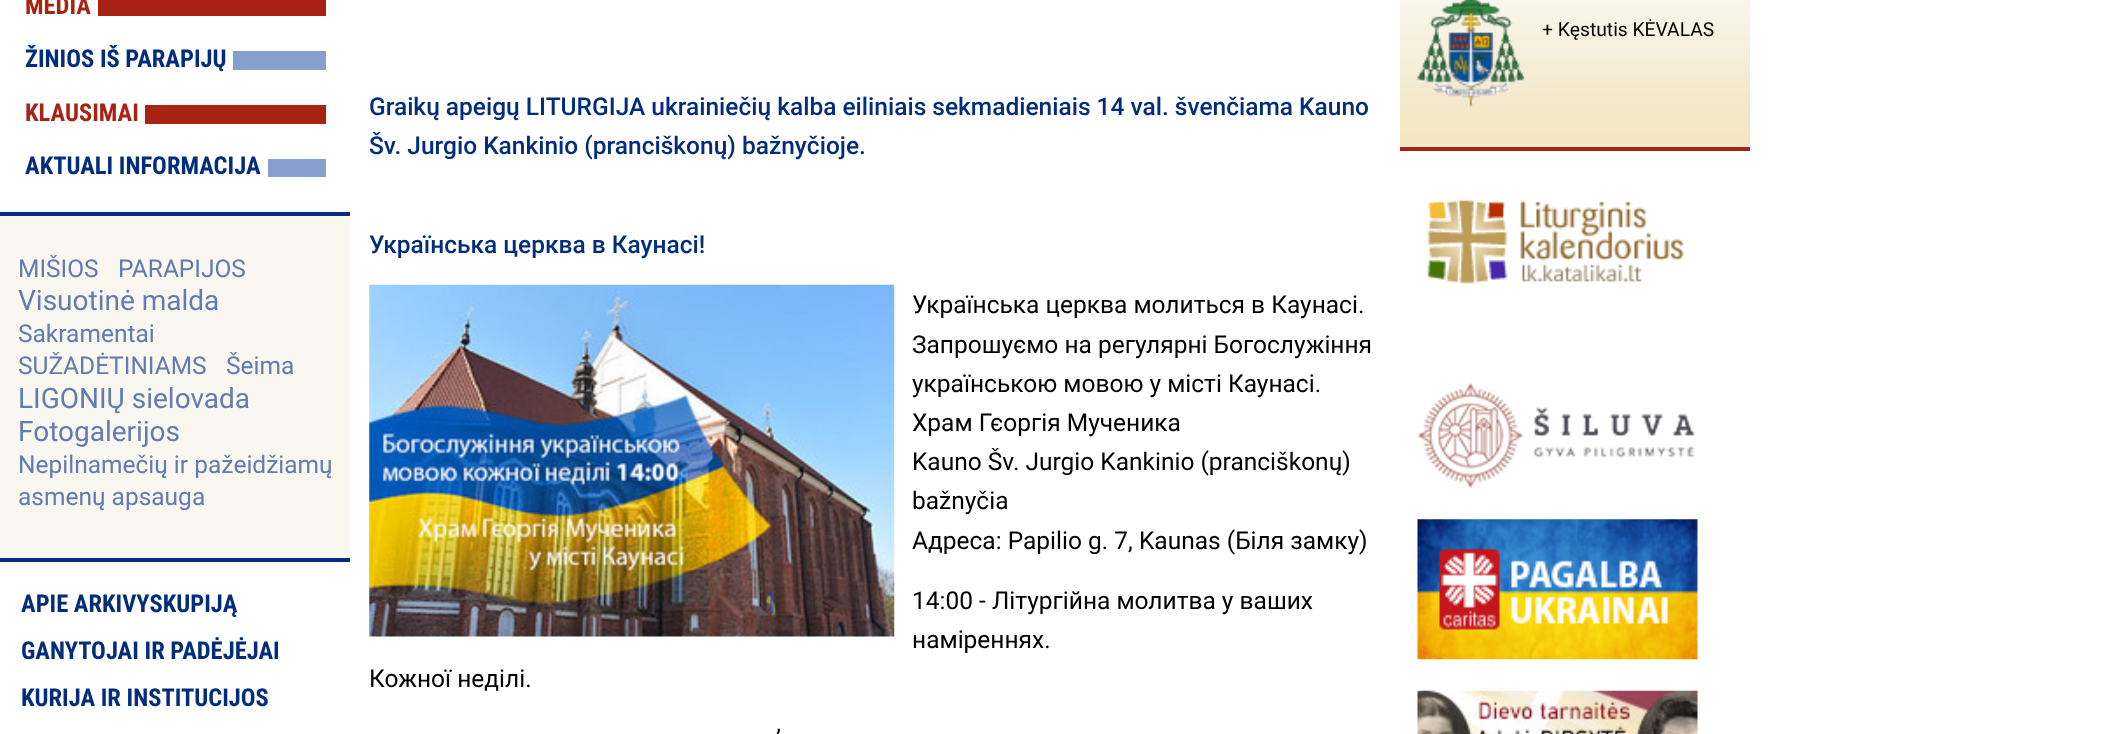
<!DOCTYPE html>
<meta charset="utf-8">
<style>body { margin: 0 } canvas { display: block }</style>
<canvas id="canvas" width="2123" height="734"></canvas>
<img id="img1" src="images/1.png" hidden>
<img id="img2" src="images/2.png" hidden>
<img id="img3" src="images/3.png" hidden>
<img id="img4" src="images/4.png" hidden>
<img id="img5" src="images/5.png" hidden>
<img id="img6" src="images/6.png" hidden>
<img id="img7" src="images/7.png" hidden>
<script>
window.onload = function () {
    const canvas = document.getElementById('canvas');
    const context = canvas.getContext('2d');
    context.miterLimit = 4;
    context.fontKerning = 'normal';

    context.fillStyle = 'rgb(255, 255, 255)';
    context.fillRect(0, 0, 2123, 734);
    context.fillStyle = 'rgb(169, 35, 21)';
    context.fillRect(98, 0, 228, 16);
    context.fillStyle = 'rgb(134, 159, 204)';
    context.fillRect(233, 51, 93, 19);
    context.fillStyle = 'rgb(169, 35, 21)';
    context.fillRect(145, 105, 181, 19);
    context.fillStyle = 'rgb(134, 159, 204)';
    context.fillRect(268, 159, 58, 18);
    context.fillStyle = 'rgb(249, 247, 239)';
    context.fillRect(0, 216, 350, 342);
    context.fillStyle = 'rgb(2, 45, 124)';
    context.fillRect(0, 212, 350, 4);
    context.fillRect(0, 558, 350, 4);
    context.fillStyle = 'rgb(249, 247, 239)';
    context.fillRect(1400, 146, 350, 1);
    context.drawImage(document.getElementById('img1'), 1400, 0, 350, 147);
    context.fillStyle = 'rgb(169, 35, 21)';
    context.fillRect(1400, 147, 350, 4);
    context.drawImage(document.getElementById('img2'), 1417, 0, 108, 107);
    context.drawImage(document.getElementById('img3'), 1427, 199, 257, 85);
    context.drawImage(document.getElementById('img4'), 1417, 382, 278, 106);
    context.drawImage(document.getElementById('img5'), 1417, 519, 281, 141);
    context.drawImage(document.getElementById('img6'), 1417, 690, 281, 44);
    context.drawImage(document.getElementById('img7'), 369, 284, 526, 353);
    context.font = 'bold 24.5px Roboto Condensed';
    context.fillText('MEDIA', 25, 14);
    context.fillStyle = 'rgb(2, 45, 124)';
    context.fillText('ŽINIOS IŠ PARAPIJŲ', 25, 67);
    context.fillStyle = 'rgb(169, 35, 21)';
    context.fillText('KLAUSIMAI', 25, 121);
    context.fillStyle = 'rgb(2, 45, 124)';
    context.fillText('AKTUALI INFORMACIJA', 25, 174);
    context.font = '24.5px Roboto';
    context.fillStyle = 'rgb(96, 124, 177)';
    context.fillText('MIŠIOS', 18, 277);
    context.fillText('PARAPIJOS', 118, 277);
    context.font = '28px Roboto';
    context.fillText('Visuotinė malda', 18, 310);
    context.font = '24.5px Roboto';
    context.fillText('Sakramentai', 18, 342);
    context.fillText('SUŽADĖTINIAMS', 18, 374);
    context.fillText('Šeima', 226, 374);
    context.font = '28px Roboto';
    context.fillText('LIGONIŲ sielovada', 18, 408);
    context.fillText('Fotogalerijos', 18, 441);
    context.font = '24.5px Roboto';
    context.fillText('Nepilnamečių ir pažeidžiamų', 18, 473);
    context.fillText('asmenų apsauga', 18, 505);
    context.font = 'bold 24.5px Roboto Condensed';
    context.fillStyle = 'rgb(2, 45, 124)';
    context.fillText('APIE ARKIVYSKUPIJĄ', 21, 612);
    context.fillText('GANYTOJAI IR PADĖJĖJAI', 21, 659);
    context.fillText('KURIJA IR INSTITUCIJOS', 21, 706);
    context.font = '19.25px Roboto';
    context.fillStyle = 'rgb(0, 0, 0)';
    context.fillText('+ Kęstutis KĖVALAS', 1542, 36);
    context.font = '500 24.5px Roboto';
    context.fillStyle = 'rgb(2, 45, 124)';
    context.fillText('Graikų apeigų LITURGIJA ukrainiečių kalba eiliniais sekmadieniais 14 val. švenčiama Kauno', 369, 115);
    context.fillText('Šv. Jurgio Kankinio (pranciškonų) bažnyčioje.', 369, 154);
    context.fillText('Українська церква в Каунасі!', 369, 253);
    context.font = '24.5px Roboto';
    context.fillStyle = 'rgb(0, 0, 0)';
    context.fillText('Українська церква молиться в Каунасі.', 912, 313);
    context.fillText('Запрошуємо на регулярні Богослужіння', 912, 353);
    context.fillText('українською мовою у місті Каунасі.', 912, 392);
    context.fillText('Храм Гєоргія Мученика', 912, 431);
    context.fillText('Kauno Šv. Jurgio Kankinio (pranciškonų)', 912, 470);
    context.fillText('bažnyčia', 912, 509);
    context.fillText('Адреса: Papilio g. 7, Kaunas (Біля замку)', 912, 549);
    context.fillText('14:00 - Літургійна молитва у ваших', 912, 609);
    context.fillText('наміреннях.', 912, 648);
    context.fillText('Кожної неділі.', 369, 687);
    context.fillText('’', 776, 747);
};
</script>
